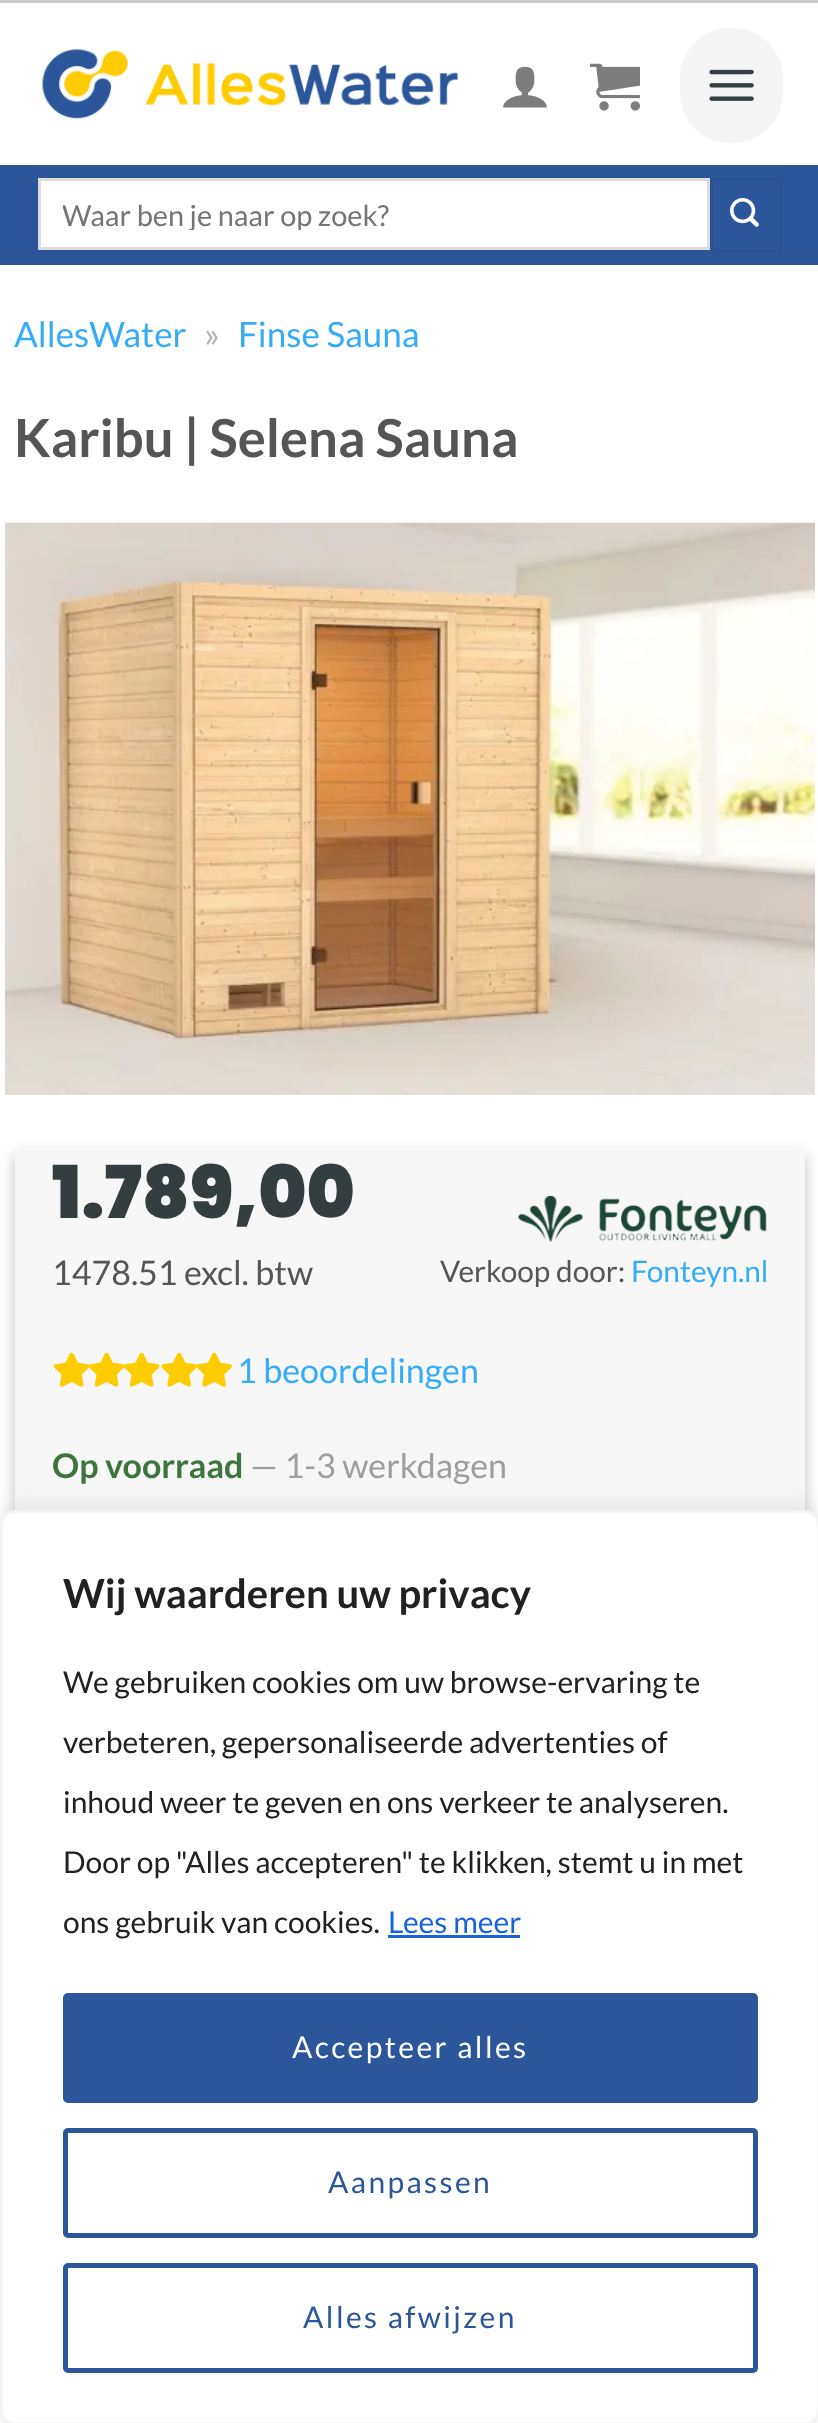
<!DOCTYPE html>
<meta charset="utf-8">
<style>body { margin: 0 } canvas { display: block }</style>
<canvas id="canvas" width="818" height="2423"></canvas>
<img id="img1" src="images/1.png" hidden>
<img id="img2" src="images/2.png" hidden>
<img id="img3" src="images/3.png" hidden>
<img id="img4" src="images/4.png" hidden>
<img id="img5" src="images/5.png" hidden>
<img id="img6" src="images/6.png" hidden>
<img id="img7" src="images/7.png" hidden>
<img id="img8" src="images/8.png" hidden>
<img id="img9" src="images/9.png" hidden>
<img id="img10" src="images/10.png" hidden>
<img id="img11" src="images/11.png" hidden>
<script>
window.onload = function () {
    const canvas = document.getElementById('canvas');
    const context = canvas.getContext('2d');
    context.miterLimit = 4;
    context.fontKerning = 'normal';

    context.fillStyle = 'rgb(204, 204, 204)';
    context.fillRect(0, 0, 818, 2423);
    context.fillStyle = 'rgb(255, 255, 255)';
    context.fillRect(0, 3, 818, 2420);
    context.drawImage(document.getElementById('img1'), 42, 49, 416, 70);
    context.drawImage(document.getElementById('img2'), 503, 66, 44, 42);
    context.drawImage(document.getElementById('img3'), 590, 63, 50, 48);
    context.fillStyle = 'rgb(245, 245, 245)';
    context.beginPath();
    context.roundRect(680, 28, 103, 115, 50);
    context.fill();
    context.drawImage(document.getElementById('img4'), 709, 69, 45, 32);
    context.fillStyle = 'rgb(43, 87, 154)';
    context.fillRect(0, 165, 818, 100);
    context.fillStyle = 'rgb(47, 87, 147)';
    context.fillRect(38, 165, 745, 3);
    context.fillStyle = 'rgb(255, 255, 255)';
    context.beginPath();
    context.rect(39.5, 179.5, 669, 69);
    context.fill();
    context.strokeStyle = 'rgb(221, 221, 221)';
    context.lineWidth = 3;
    context.stroke();
    context.strokeStyle = 'rgb(41, 83, 146)';
    context.strokeRect(711.5, 179.5, 70, 72);
    context.drawImage(document.getElementById('img5'), 730, 197, 29, 30);
    context.drawImage(document.getElementById('img6'), 5, 522, 810, 573);
    context.fillStyle = 'rgba(0, 0, 0, 0.23)';
    context.filter = 'blur(7.5px)';
    context.beginPath();
    context.rect(15, 1155, 790, 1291);
    context.fill();
    context.filter = 'none';
    context.fillStyle = 'rgb(247, 247, 247)';
    context.fillRect(15, 1148, 790, 362);
    context.drawImage(document.getElementById('img7'), 53, 1352, 37, 35);
    context.drawImage(document.getElementById('img8'), 89, 1352, 36, 35);
    context.drawImage(document.getElementById('img8'), 124, 1352, 36, 35);
    context.drawImage(document.getElementById('img9'), 161, 1352, 36, 35);
    context.drawImage(document.getElementById('img10'), 196, 1352, 36, 35);
    context.drawImage(document.getElementById('img11'), 518, 1195, 249, 47);
    context.fillStyle = 'rgba(172, 171, 171, 0.3)';
    context.filter = 'blur(12.5px)';
    context.beginPath();
    context.roundRect(0, 1508, 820, 915, 15);
    context.fill();
    context.filter = 'none';
    context.fillStyle = 'rgb(255, 255, 255)';
    context.beginPath();
    context.roundRect(1.5, 1511.5, 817, 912, 13.5);
    context.fill();
    context.strokeStyle = 'rgb(244, 244, 244)';
    context.stroke();
    context.fillStyle = 'rgb(24, 99, 220)';
    context.fillRect(388, 1935, 132, 3);
    context.fillStyle = 'rgb(43, 87, 154)';
    context.beginPath();
    context.roundRect(65.5, 1995.5, 690, 105, 2.5);
    context.fill();
    context.strokeStyle = 'rgb(43, 87, 154)';
    context.lineWidth = 5;
    context.stroke();
    context.beginPath();
    context.roundRect(65.5, 2130.5, 690, 105, 2.5);
    context.stroke();
    context.beginPath();
    context.roundRect(65.5, 2265.5, 690, 105, 2.5);
    context.stroke();
    context.save();
    context.beginPath();
    context.rect(63, 198, 615, 32);
    context.clip();
    context.font = '28.9px Lato';
    context.fillStyle = 'rgb(117, 117, 117)';
    context.fillText('Waar ben je naar op zoek?', 62, 226);
    context.restore();
    context.font = '35px Lato';
    context.fillStyle = 'rgb(53, 172, 248)';
    context.fillText('AllesWater', 14, 347);
    context.fillStyle = 'rgb(178, 178, 178)';
    context.fillText('»', 204, 347);
    context.fillStyle = 'rgb(53, 172, 248)';
    context.fillText('Finse Sauna', 238, 347);
    context.font = 'bold 52.5px Lato';
    context.fillStyle = 'rgb(85, 85, 85)';
    context.fillText('Karibu | Selena Sauna', 14, 457);
    context.font = '900 73px Poppins';
    context.fillStyle = 'rgb(52, 62, 64)';
    context.fillText('1.789,00', 52, 1218);
    context.font = '34px Lato';
    context.fillStyle = 'rgb(85, 85, 85)';
    context.fillText('1478.51 excl. btw', 52, 1285);
    context.fillStyle = 'rgb(53, 172, 248)';
    context.fillText('1 beoordelingen', 237, 1383);
    context.font = 'bold 34px Lato';
    context.fillStyle = 'rgb(60, 118, 61)';
    context.fillText('Op voorraad', 52, 1478);
    context.font = '34px Lato';
    context.fillStyle = 'rgb(158, 158, 158)';
    context.fillText('— 1-3 werkdagen', 250, 1478);
    context.font = '29.75px Lato';
    context.fillStyle = 'rgb(85, 85, 85)';
    context.fillText('Verkoop door:', 440, 1282);
    context.fillStyle = 'rgb(53, 172, 248)';
    context.fillText('Fonteyn.nl', 631, 1282);
    context.font = 'bold 40px Lato';
    context.fillStyle = 'rgb(33, 33, 33)';
    context.fillText('Wij waarderen uw privacy', 63, 1608);
    context.font = '30px Lato';
    context.fillText('We gebruiken cookies om uw browse-ervaring te', 63, 1693);
    context.fillText('verbeteren, gepersonaliseerde advertenties of', 63, 1753);
    context.fillText('inhoud weer te geven en ons verkeer te analyseren.', 63, 1813);
    context.fillText('Door op "Alles accepteren" te klikken, stemt u in met', 63, 1873);
    context.fillText('ons gebruik van cookies.', 63, 1933);
    context.fillStyle = 'rgb(24, 99, 220)';
    context.fillText('Lees meer', 388, 1933);
    context.letterSpacing = '2.4px';
    context.fillStyle = 'rgb(255, 255, 255)';
    context.fillText('Accepteer alles', 292, 2058);
    context.fillStyle = 'rgb(43, 87, 154)';
    context.fillText('Aanpassen', 328, 2193);
    context.fillText('Alles afwijzen', 303, 2328);
};
</script>
